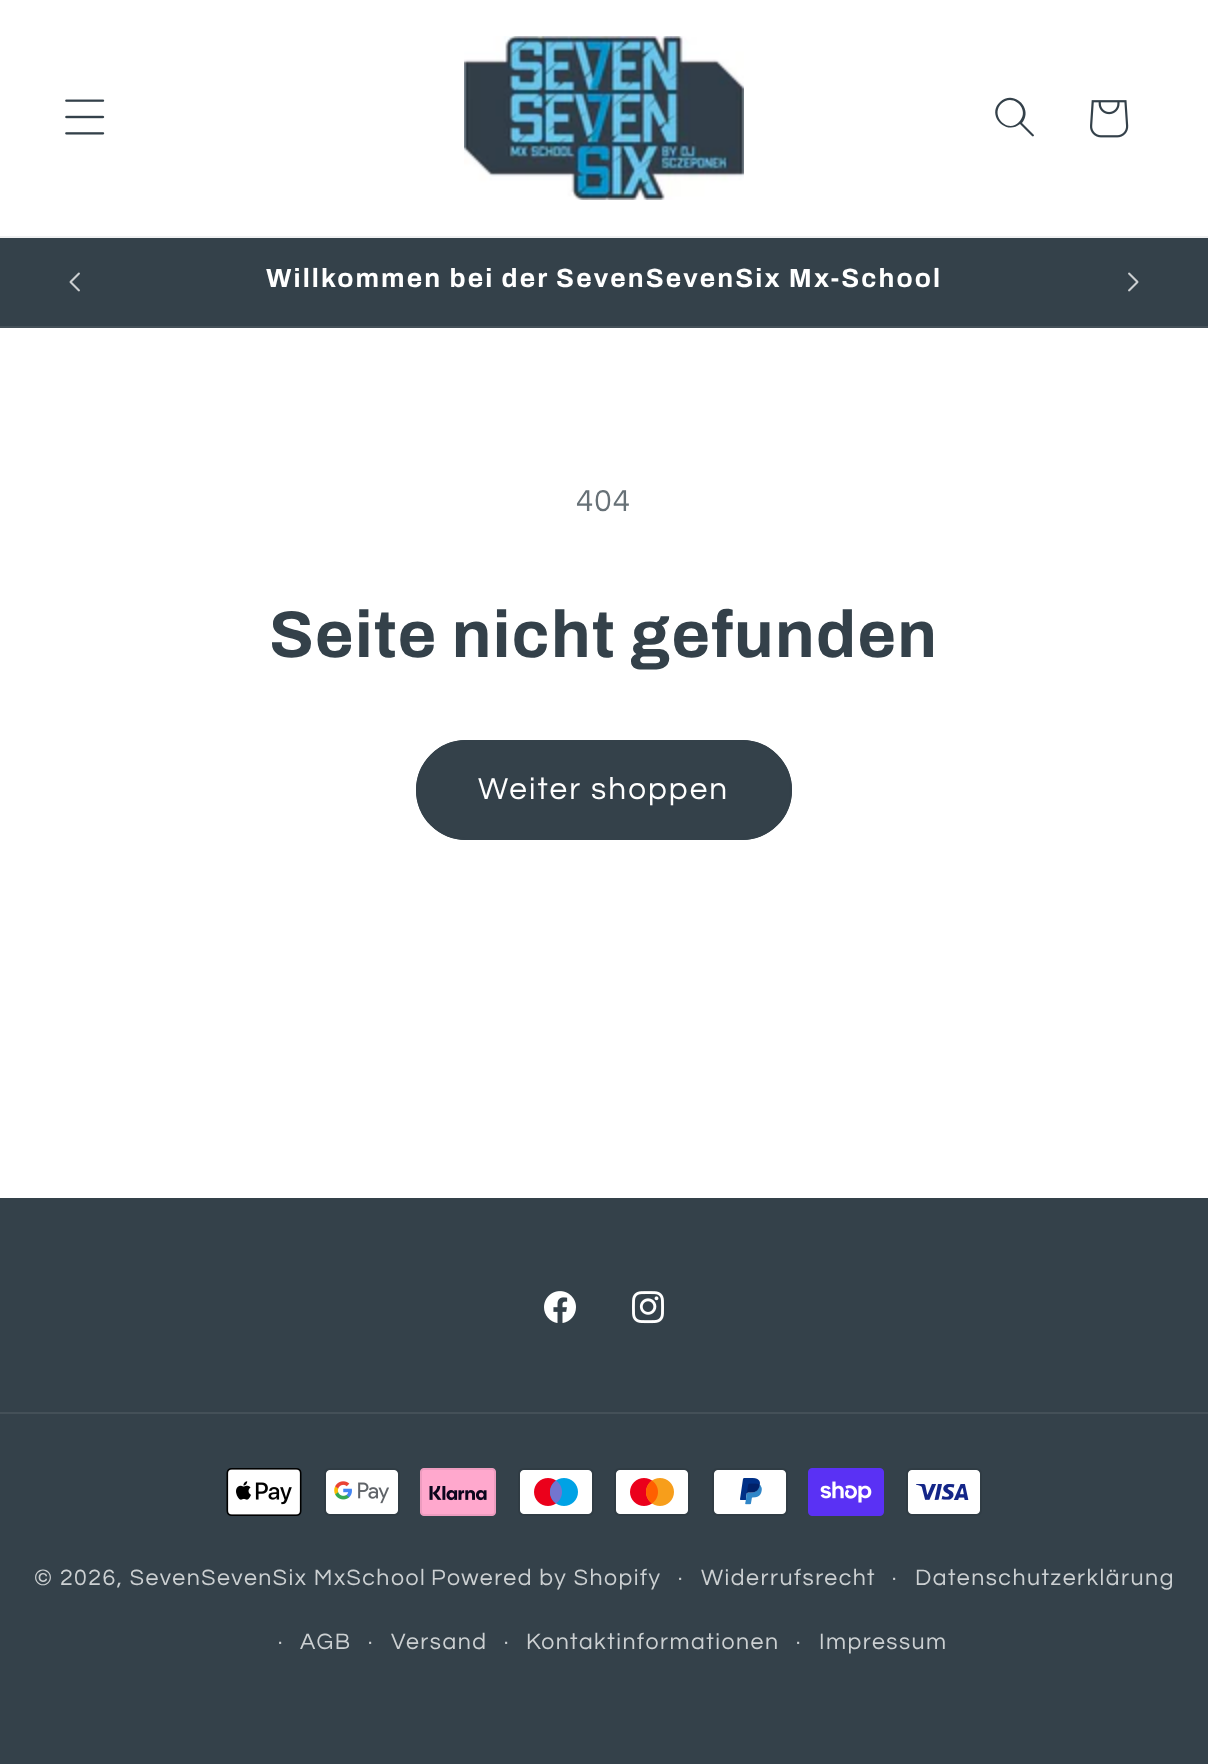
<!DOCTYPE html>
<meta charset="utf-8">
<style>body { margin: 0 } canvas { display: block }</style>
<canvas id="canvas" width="1208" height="1764"></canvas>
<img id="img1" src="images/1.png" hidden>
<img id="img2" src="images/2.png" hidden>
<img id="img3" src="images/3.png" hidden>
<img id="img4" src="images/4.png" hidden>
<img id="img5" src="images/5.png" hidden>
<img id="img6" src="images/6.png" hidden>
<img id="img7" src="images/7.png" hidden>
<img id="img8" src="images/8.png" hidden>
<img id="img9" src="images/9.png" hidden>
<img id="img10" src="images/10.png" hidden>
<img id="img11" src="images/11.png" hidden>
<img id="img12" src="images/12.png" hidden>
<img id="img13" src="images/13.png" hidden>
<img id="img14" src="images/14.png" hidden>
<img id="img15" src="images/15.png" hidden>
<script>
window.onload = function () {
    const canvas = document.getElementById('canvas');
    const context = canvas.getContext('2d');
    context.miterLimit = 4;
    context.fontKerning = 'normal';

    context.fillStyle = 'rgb(255, 255, 255)';
    context.fillRect(0, 0, 1208, 1764);
    context.fillStyle = 'rgb(239, 240, 241)';
    context.fillRect(0, 236, 1208, 2);
    context.drawImage(document.getElementById('img1'), 65, 99, 40, 36);
    context.drawImage(document.getElementById('img2'), 464, 36, 280, 164);
    context.fillStyle = 'rgb(52, 65, 74)';
    context.beginPath();
    context.moveTo(1019, 122);
    context.bezierCurveTo(1008, 134, 990, 116, 1001, 104);
    context.bezierCurveTo(1013, 92, 1031, 110, 1019, 122);
    context.moveTo(1020, 124);
    context.bezierCurveTo(1006, 136, 986, 115, 1000, 102);
    context.bezierCurveTo(1014, 89, 1034, 109, 1022, 123);
    context.lineTo(1034, 135);
    context.bezierCurveTo(1034, 136, 1033, 137, 1032, 136);
    context.closePath();
    context.fill('evenodd');
    context.drawImage(document.getElementById('img3'), 1090, 100, 39, 38);
    context.fillRect(0, 238, 1208, 88);
    context.fillStyle = 'rgb(68, 80, 88)';
    context.fillRect(0, 326, 1208, 2);
    context.drawImage(document.getElementById('img4'), 69, 272, 11, 20);
    context.drawImage(document.getElementById('img5'), 1128, 272, 11, 20);
    context.fillStyle = 'rgb(52, 65, 74)';
    context.beginPath();
    context.roundRect(416, 740, 376, 100, 50);
    context.fill();
    context.beginPath();
    context.roundRect(417, 741, 374, 98, 49);
    context.strokeStyle = 'rgb(52, 65, 74)';
    context.lineWidth = 2;
    context.stroke();
    context.fillRect(0, 1198, 1208, 566);
    context.drawImage(document.getElementById('img6'), 544, 1291, 32, 32);
    context.drawImage(document.getElementById('img7'), 632, 1291, 32, 33);
    context.fillStyle = 'rgb(68, 80, 88)';
    context.fillRect(0, 1412, 1208, 2);
    context.drawImage(document.getElementById('img8'), 226, 1468, 76, 48);
    context.drawImage(document.getElementById('img9'), 324, 1468, 76, 48);
    context.drawImage(document.getElementById('img10'), 420, 1468, 76, 48);
    context.drawImage(document.getElementById('img11'), 518, 1468, 76, 48);
    context.drawImage(document.getElementById('img12'), 614, 1468, 76, 48);
    context.drawImage(document.getElementById('img13'), 712, 1468, 76, 48);
    context.drawImage(document.getElementById('img14'), 808, 1468, 76, 48);
    context.drawImage(document.getElementById('img15'), 906, 1468, 76, 48);
    context.letterSpacing = '2.1px';
    context.font = 'bold 26.4px Archivo';
    context.fillStyle = 'rgb(255, 255, 255)';
    context.fillText('Willkommen bei der SevenSevenSix Mx-School', 266, 287);
    context.letterSpacing = '1px';
    context.font = '31.5px Questrial';
    context.fillStyle = 'rgb(103, 113, 119)';
    context.fillText('404', 576, 511);
    context.letterSpacing = '1.3px';
    context.font = 'bold 66px Archivo';
    context.fillStyle = 'rgb(52, 65, 74)';
    context.fillText('Seite nicht gefunden', 269, 657);
    context.letterSpacing = '2.1px';
    context.font = '31.5px Questrial';
    context.fillStyle = 'rgb(255, 255, 255)';
    context.fillText('Weiter shoppen', 478, 799);
    context.letterSpacing = '1.5px';
    context.font = '23.1px Questrial';
    context.fillStyle = 'rgb(204, 208, 210)';
    context.fillText('© 2026, SevenSevenSix MxSchool', 34, 1585);
    context.font = '21px Questrial';
    context.fillText('·', 678, 1585);
    context.font = '23.1px Questrial';
    context.fillText('Widerrufsrecht', 701, 1585);
    context.font = '21px Questrial';
    context.fillText('·', 892, 1585);
    context.font = '23.1px Questrial';
    context.fillText('Datenschutzerklärung', 915, 1585);
    context.font = '21px Questrial';
    context.fillText('·', 278, 1649);
    context.font = '23.1px Questrial';
    context.fillText('AGB', 300, 1649);
    context.font = '21px Questrial';
    context.fillText('·', 368, 1649);
    context.font = '23.1px Questrial';
    context.fillText('Versand', 391, 1649);
    context.font = '21px Questrial';
    context.fillText('·', 504, 1649);
    context.font = '23.1px Questrial';
    context.fillText('Kontaktinformationen', 526, 1649);
    context.font = '21px Questrial';
    context.fillText('·', 796, 1649);
    context.font = '23.1px Questrial';
    context.fillText('Impressum', 819, 1649);
    context.fillText('Powered by Shopify', 431, 1585);
};
</script>
